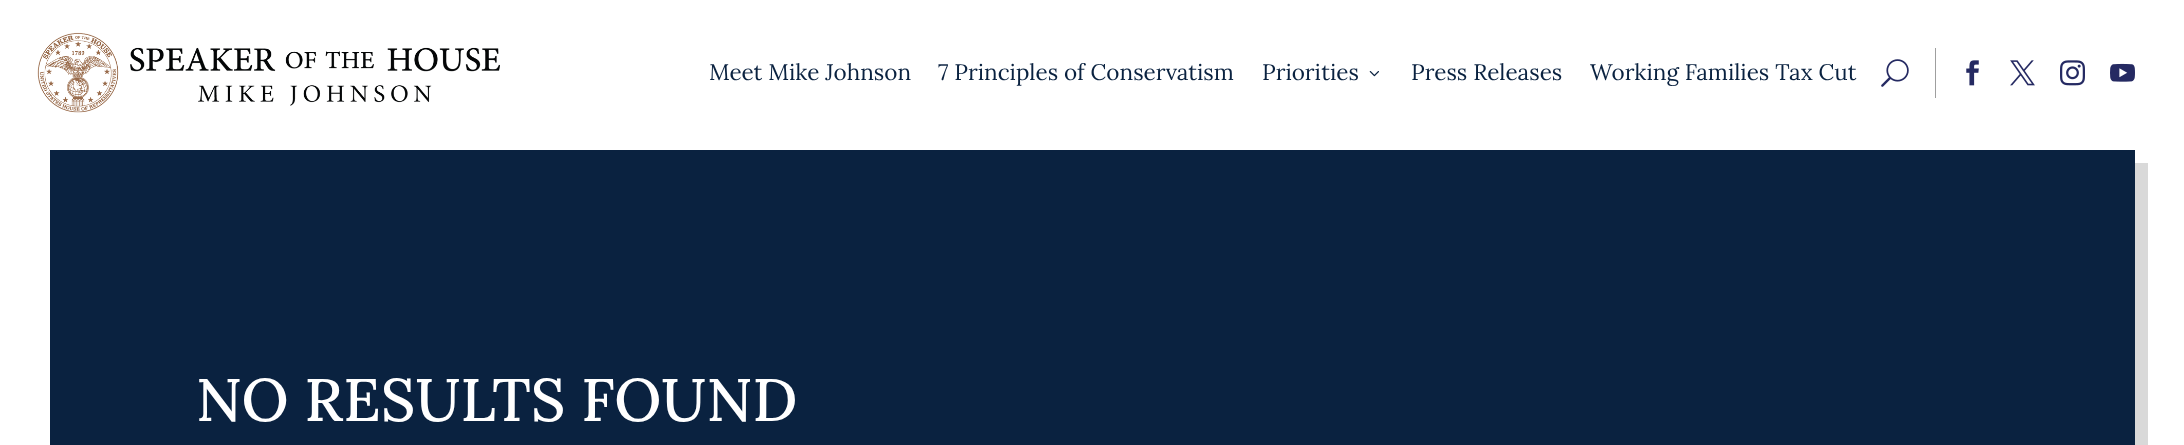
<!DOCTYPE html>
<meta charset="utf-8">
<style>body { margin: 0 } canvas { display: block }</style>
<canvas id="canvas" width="2184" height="445"></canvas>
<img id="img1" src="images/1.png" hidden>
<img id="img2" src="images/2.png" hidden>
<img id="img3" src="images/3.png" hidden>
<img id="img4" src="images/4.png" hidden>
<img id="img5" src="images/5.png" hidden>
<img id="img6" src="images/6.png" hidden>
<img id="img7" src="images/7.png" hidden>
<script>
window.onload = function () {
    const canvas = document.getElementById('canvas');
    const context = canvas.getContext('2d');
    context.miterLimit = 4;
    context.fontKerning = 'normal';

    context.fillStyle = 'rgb(255, 255, 255)';
    context.fillRect(0, 0, 2184, 445);
    context.drawImage(document.getElementById('img1'), 37, 32, 463, 81);
    context.drawImage(document.getElementById('img2'), 1369, 71, 10, 6);
    context.drawImage(document.getElementById('img3'), 1881, 59, 28, 28);
    context.fillStyle = 'rgb(159, 159, 159)';
    context.fillRect(1935, 48, 1, 50);
    context.drawImage(document.getElementById('img4'), 1966, 60, 13, 26);
    context.drawImage(document.getElementById('img5'), 2010, 60, 25, 26);
    context.drawImage(document.getElementById('img6'), 2060, 60, 25, 26);
    context.drawImage(document.getElementById('img7'), 2110, 63, 25, 19);
    context.fillStyle = 'rgb(217, 217, 217)';
    context.beginPath();
    context.moveTo(63, 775);
    context.lineTo(63, 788);
    context.lineTo(2148, 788);
    context.lineTo(2148, 163);
    context.lineTo(2135, 163);
    context.lineTo(2135, 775);
    context.closePath();
    context.fill();
    context.fillStyle = 'rgb(10, 34, 64)';
    context.fillRect(50, 150, 2085, 295);
    context.font = '22.5px Lora';
    context.fillText('Meet Mike Johnson', 709, 80);
    context.fillText('7 Principles of Conservatism', 938, 80);
    context.fillText('Priorities', 1262, 80);
    context.fillText('Press Releases', 1411, 80);
    context.fillText('Working Families Tax Cut', 1590, 80);
    context.font = '500 60px Lora';
    context.fillStyle = 'rgb(255, 255, 255)';
    context.fillText('NO RESULTS FOUND', 196, 421);
};
</script>
